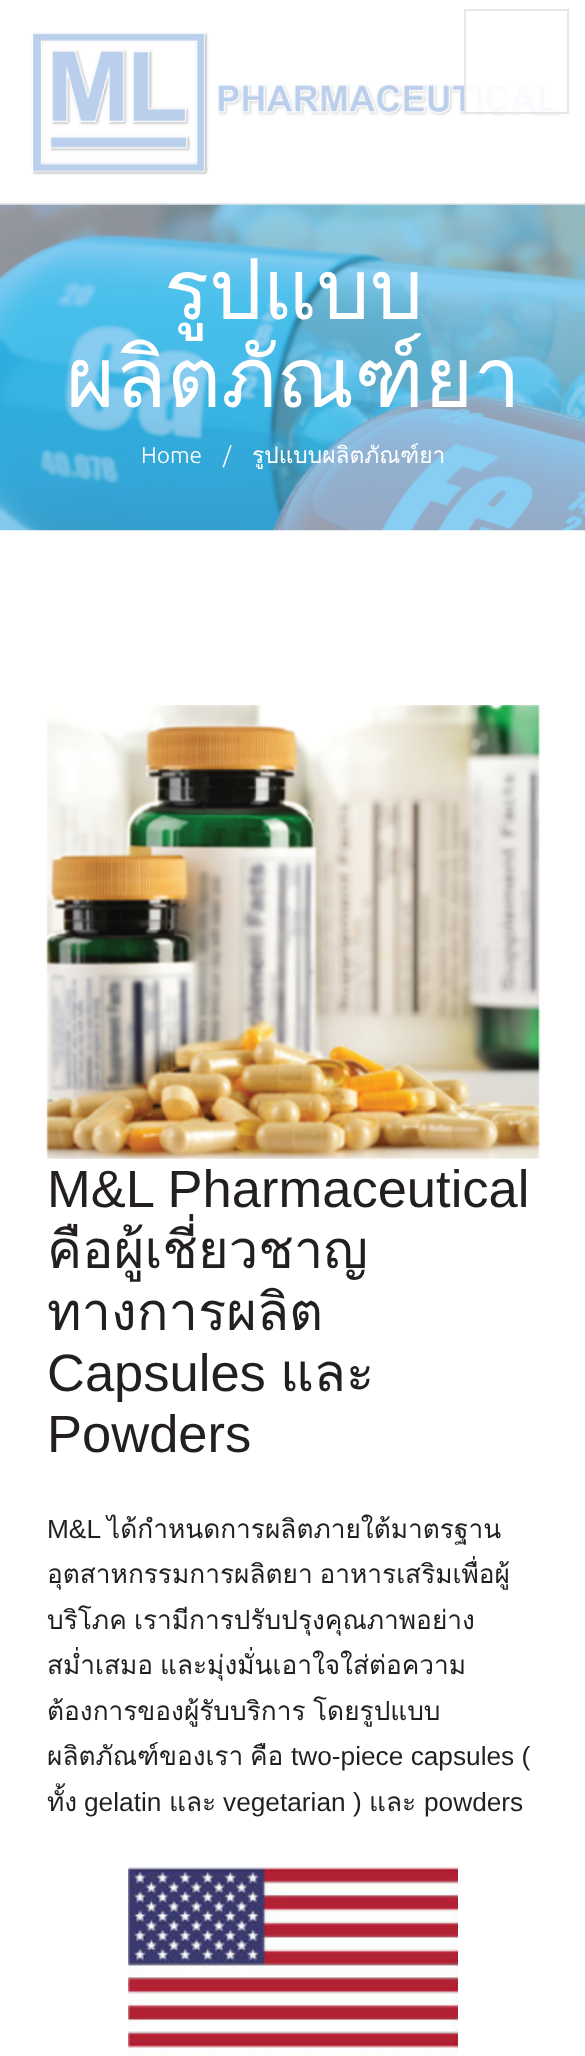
<!DOCTYPE html>
<meta charset="utf-8">
<style>body { margin: 0 } canvas { display: block }</style>
<canvas id="canvas" width="585" height="2056"></canvas>
<img id="img1" src="images/1.png" hidden>
<img id="img2" src="images/2.png" hidden>
<img id="img3" src="images/3.png" hidden>
<img id="img4" src="images/4.png" hidden>
<script>
window.onload = function () {
    const canvas = document.getElementById('canvas');
    const context = canvas.getContext('2d');
    context.miterLimit = 4;
    context.fontKerning = 'normal';

    context.fillStyle = 'rgb(255, 255, 255)';
    context.fillRect(0, 0, 585, 2056);
    context.fillStyle = 'rgb(229, 232, 235)';
    context.fillRect(0, 203, 585, 2);
    context.drawImage(document.getElementById('img1'), 31, 32, 530, 143);
    context.fillStyle = 'rgba(255, 255, 255, 0.9)';
    context.fillRect(466, 83, 95, 29);
    context.strokeStyle = 'rgb(229, 232, 235)';
    context.lineWidth = 2;
    context.strokeRect(465, 10, 103, 103);
    context.drawImage(document.getElementById('img2'), 0, 204, 585, 327);
    context.drawImage(document.getElementById('img3'), 46, 705, 495, 454);
    context.drawImage(document.getElementById('img4'), 128, 1867, 330, 189);
    context.font = '84px Loma';
    context.fillStyle = 'rgb(255, 255, 255)';
    context.fillText('รูปแบบ', 164, 319);
    context.fillText('ผลิตภัณฑ์ยา', 66, 407);
    context.font = '300 22.75px Ubuntu';
    context.fillText('Home', 141, 463);
    context.fillText('/', 223, 463);
    context.font = '22.75px Loma';
    context.fillText('รูปแบบผลิตภัณฑ์ยา', 252, 463);
    context.font = '52.5px Liberation Sans';
    context.fillStyle = 'rgb(35, 31, 32)';
    context.fillText('M&L Pharmaceutical', 47, 1207);
    context.save();
    context.beginPath();
    context.rect(30, 705, 527, 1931);
    context.clip();
    context.font = '52.5px Loma';
    context.fillText('คือผู้เชี่ยวชาญ', 47, 1268);
    context.restore();
    context.font = '52.5px Loma';
    context.fillText('ทางการผลิต', 47, 1330);
    context.font = '52.5px Liberation Sans';
    context.fillText('Capsules', 47, 1391);
    context.font = '52.5px Loma';
    context.fillText('และ', 280, 1391);
    context.font = '52.5px Liberation Sans';
    context.fillText('Powders', 47, 1452);
    context.font = '26.25px Liberation Sans';
    context.fillText('M&L', 47, 1538);
    context.font = '26.25px Loma';
    context.fillText('ได้กำหนดการผลิตภายใต้มาตรฐาน', 107, 1538);
    context.wordSpacing = '-2px';
    context.fillText('อุตสาหกรรมการผลิตยา อาหารเสริมเพื่อผู้', 47, 1583);
    context.wordSpacing = '0px';
    context.fillText('บริโภค', 47, 1629);
    context.fillText('เรามีการปรับปรุงคุณภาพอย่าง', 134, 1629);
    context.wordSpacing = '-2px';
    context.fillText('สม่ำเสมอ และมุ่งมั่นเอาใจใส่ต่อความ', 47, 1674);
    context.wordSpacing = '0px';
    context.fillText('ต้องการของผู้รับบริการ', 47, 1720);
    context.fillText('โดยรูปแบบ', 313, 1720);
    context.fillText('ผลิตภัณฑ์ของเรา', 47, 1765);
    context.fillText('คือ', 250, 1765);
    context.font = '26.25px Liberation Sans';
    context.fillText('two-piece capsules (', 291, 1765);
    context.font = '26.25px Loma';
    context.fillText('ทั้ง', 47, 1811);
    context.font = '26.25px Liberation Sans';
    context.fillText('gelatin', 84, 1811);
    context.font = '26.25px Loma';
    context.fillText('และ', 169, 1811);
    context.font = '26.25px Liberation Sans';
    context.fillText('vegetarian )', 223, 1811);
    context.font = '26.25px Loma';
    context.fillText('และ', 369, 1811);
    context.font = '26.25px Liberation Sans';
    context.fillText('powders', 424, 1811);
};
</script>
